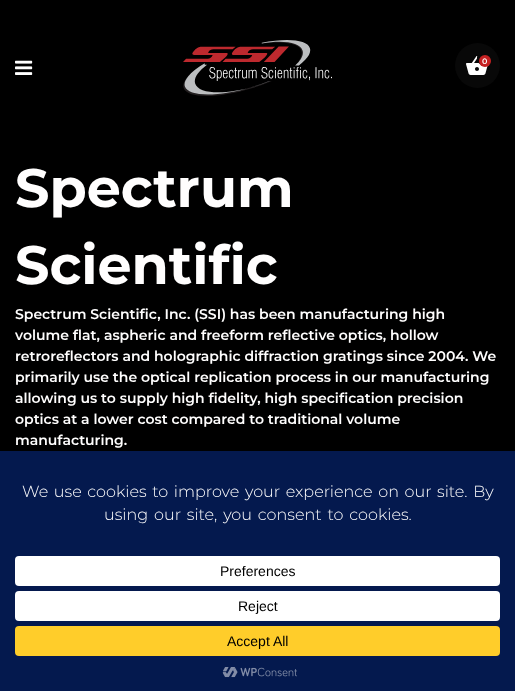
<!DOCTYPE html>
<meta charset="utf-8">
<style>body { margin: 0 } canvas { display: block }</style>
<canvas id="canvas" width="515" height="691"></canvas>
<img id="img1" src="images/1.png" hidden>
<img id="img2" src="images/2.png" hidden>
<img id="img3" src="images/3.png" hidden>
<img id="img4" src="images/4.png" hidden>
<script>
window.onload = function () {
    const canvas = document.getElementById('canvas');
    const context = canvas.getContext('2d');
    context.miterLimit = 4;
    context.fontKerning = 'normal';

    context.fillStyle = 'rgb(0, 0, 0)';
    context.fillRect(0, 0, 515, 691);
    context.drawImage(document.getElementById('img1'), 15, 60, 18, 15);
    context.drawImage(document.getElementById('img2'), 183, 40, 149, 56);
    context.fillStyle = 'rgb(8, 8, 8)';
    context.beginPath();
    context.arc(477.5, 65.5, 22.5, 0, 2 * Math.PI);
    context.fill();
    context.drawImage(document.getElementById('img3'), 466, 56, 22, 19);
    context.fillStyle = 'rgb(197, 33, 34)';
    context.beginPath();
    context.arc(485, 61, 6, 0, 2 * Math.PI);
    context.fill();
    context.fillStyle = 'rgb(4, 25, 78)';
    context.fillRect(0, 451, 515, 240);
    context.fillStyle = 'rgb(255, 255, 255)';
    context.beginPath();
    context.roundRect(15, 556, 485, 30, 4);
    context.fill();
    context.beginPath();
    context.roundRect(15, 591, 485, 30, 4);
    context.fill();
    context.fillStyle = 'rgb(255, 205, 42)';
    context.beginPath();
    context.roundRect(15, 626, 485, 30, 4);
    context.fill();
    context.drawImage(document.getElementById('img4'), 222, 667, 75, 11);
    context.font = '600 8px Montserrat';
    context.fillStyle = 'rgb(255, 254, 254)';
    context.fillText('0', 482, 64);
    context.font = 'bold 54px Montserrat';
    context.fillText('Spectrum', 15, 207);
    context.fillText('Scientific', 15, 284);
    context.font = '600 14px Montserrat';
    context.fillText('Spectrum Scientific, Inc. (SSI) has been manufacturing high', 15, 319);
    context.fillText('volume flat, aspheric and freeform reflective optics, hollow', 15, 340);
    context.fillText('retroreflectors and holographic diffraction gratings since 2004. We', 15, 361);
    context.fillText('primarily use the optical replication process in our manufacturing', 15, 382);
    context.fillText('allowing us to supply high fidelity, high specification precision', 15, 403);
    context.fillText('optics at a lower cost compared to traditional volume', 15, 424);
    context.fillText('manufacturing.', 15, 445);
    context.wordSpacing = '1.5px';
    context.font = '300 16px Montserrat';
    context.fillText('We use cookies to improve your experience on our site. By', 22, 497);
    context.wordSpacing = '1.75px';
    context.fillText('using our site, you consent to cookies.', 104, 520);
    context.wordSpacing = '0px';
    context.font = '14px Liberation Sans';
    context.fillStyle = 'rgb(0, 0, 0)';
    context.fillText('Preferences', 220, 576);
    context.fillText('Reject', 238, 611);
    context.fillText('Accept All', 227, 646);
};
</script>
